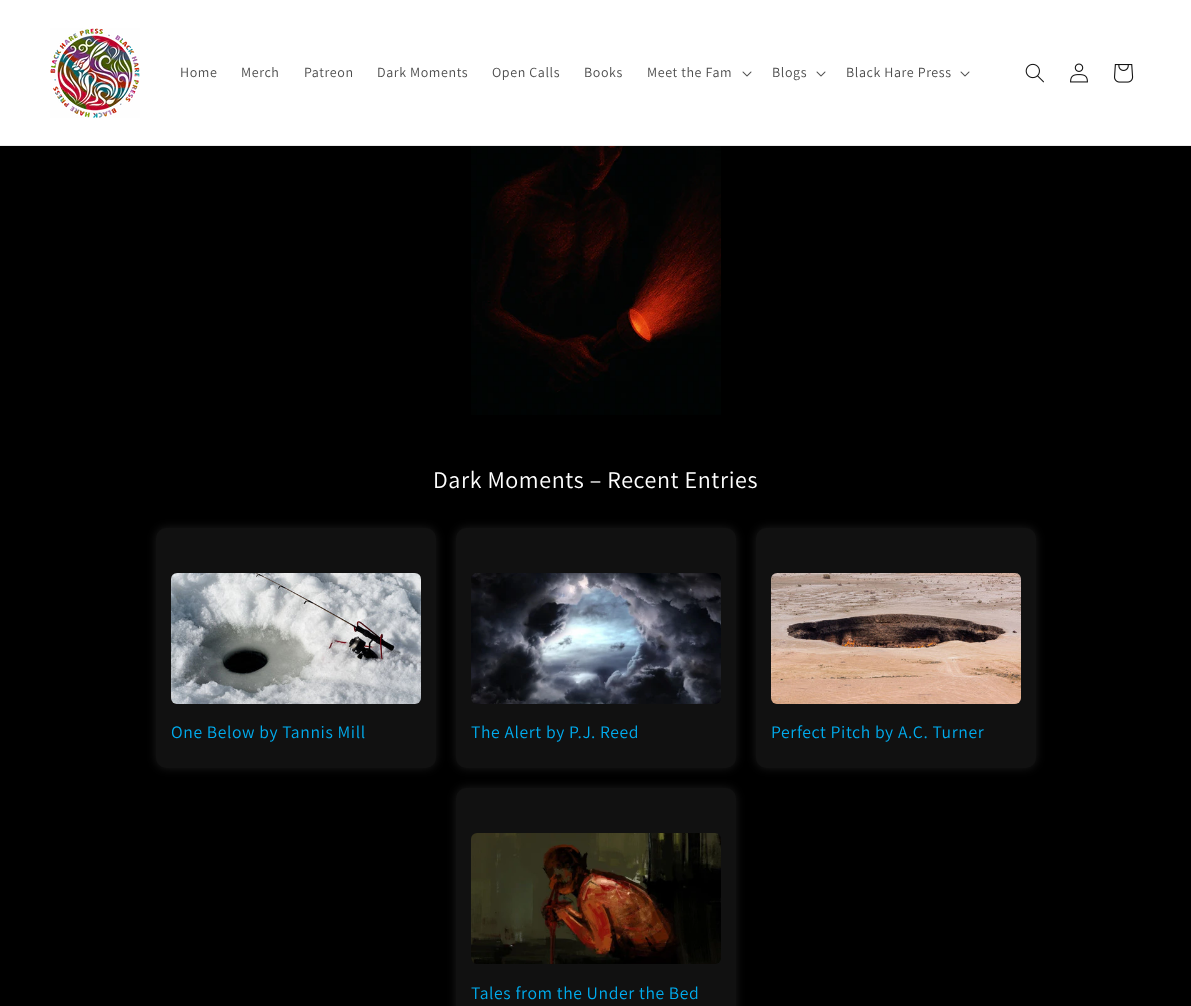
<!DOCTYPE html>
<meta charset="utf-8">
<style>body { margin: 0 } canvas { display: block }</style>
<canvas id="canvas" width="1191" height="1006"></canvas>
<img id="img1" src="images/1.png" hidden>
<img id="img2" src="images/2.png" hidden>
<img id="img3" src="images/3.png" hidden>
<img id="img4" src="images/4.png" hidden>
<img id="img5" src="images/5.png" hidden>
<img id="img6" src="images/6.png" hidden>
<img id="img7" src="images/7.png" hidden>
<img id="img8" src="images/8.png" hidden>
<img id="img9" src="images/9.png" hidden>
<img id="img10" src="images/10.png" hidden>
<script>
window.onload = function () {
    const canvas = document.getElementById('canvas');
    const context = canvas.getContext('2d');
    context.miterLimit = 4;
    context.fontKerning = 'normal';

    context.fillStyle = 'rgb(0, 0, 0)';
    context.fillRect(0, 0, 1191, 1006);
    context.fillStyle = 'rgb(255, 255, 255)';
    context.fillRect(0, 0, 1191, 145);
    context.fillStyle = 'rgb(236, 236, 236)';
    context.fillRect(0, 145, 1191, 1);
    context.drawImage(document.getElementById('img1'), 50, 28, 90, 90);
    context.drawImage(document.getElementById('img2'), 742, 71, 10, 6);
    context.drawImage(document.getElementById('img2'), 816, 71, 10, 6);
    context.drawImage(document.getElementById('img2'), 960, 71, 10, 6);
    context.drawImage(document.getElementById('img3'), 1025, 63, 19, 20);
    context.drawImage(document.getElementById('img4'), 1070, 63, 18, 20);
    context.drawImage(document.getElementById('img5'), 1114, 64, 20, 19);
    context.drawImage(document.getElementById('img6'), 471, 146, 250, 269);
    context.fillStyle = 'rgba(255, 255, 255, 0.1)';
    context.filter = 'blur(5px)';
    context.beginPath();
    context.roundRect(156, 528, 280, 240, 10);
    context.fill();
    context.filter = 'none';
    context.fillStyle = 'rgb(17, 17, 17)';
    context.beginPath();
    context.roundRect(156, 528, 280, 240, 10);
    context.fill();
    context.drawImage(document.getElementById('img7'), 171, 573, 250, 131);
    context.fillStyle = 'rgba(255, 255, 255, 0.1)';
    context.filter = 'blur(5px)';
    context.beginPath();
    context.roundRect(456, 528, 280, 240, 10);
    context.fill();
    context.filter = 'none';
    context.fillStyle = 'rgb(17, 17, 17)';
    context.beginPath();
    context.roundRect(456, 528, 280, 240, 10);
    context.fill();
    context.drawImage(document.getElementById('img8'), 471, 573, 250, 131);
    context.fillStyle = 'rgba(255, 255, 255, 0.1)';
    context.filter = 'blur(5px)';
    context.beginPath();
    context.roundRect(756, 528, 280, 240, 10);
    context.fill();
    context.filter = 'none';
    context.fillStyle = 'rgb(17, 17, 17)';
    context.beginPath();
    context.roundRect(756, 528, 280, 240, 10);
    context.fill();
    context.drawImage(document.getElementById('img9'), 771, 573, 250, 131);
    context.fillStyle = 'rgba(255, 255, 255, 0.1)';
    context.filter = 'blur(5px)';
    context.beginPath();
    context.roundRect(456, 788, 280, 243, 10);
    context.fill();
    context.filter = 'none';
    context.fillStyle = 'rgb(17, 17, 17)';
    context.beginPath();
    context.roundRect(456, 788, 280, 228, 10);
    context.fill();
    context.drawImage(document.getElementById('img10'), 471, 833, 250, 131);
    context.letterSpacing = '0.6px';
    context.font = '14px Assistant';
    context.fillStyle = 'rgb(77, 77, 77)';
    context.fillText('Home', 180, 77);
    context.fillText('Merch', 241, 77);
    context.fillText('Patreon', 304, 77);
    context.fillText('Dark Moments', 377, 77);
    context.fillText('Open Calls', 492, 77);
    context.fillText('Books', 584, 77);
    context.fillText('Meet the Fam', 647, 77);
    context.fillText('Blogs', 772, 77);
    context.fillText('Black Hare Press', 846, 77);
    context.font = '24px Assistant';
    context.fillStyle = 'rgb(255, 255, 255)';
    context.fillText('Dark Moments – Recent Entries', 433, 488);
    context.font = '17.6px Assistant';
    context.fillStyle = 'rgb(0, 172, 238)';
    context.fillText('One Below by Tannis Mill', 171, 738);
    context.fillText('The Alert by P.J. Reed', 471, 738);
    context.fillText('Perfect Pitch by A.C. Turner', 771, 738);
    context.fillText('Tales from the Under the Bed', 471, 999);
};
</script>
